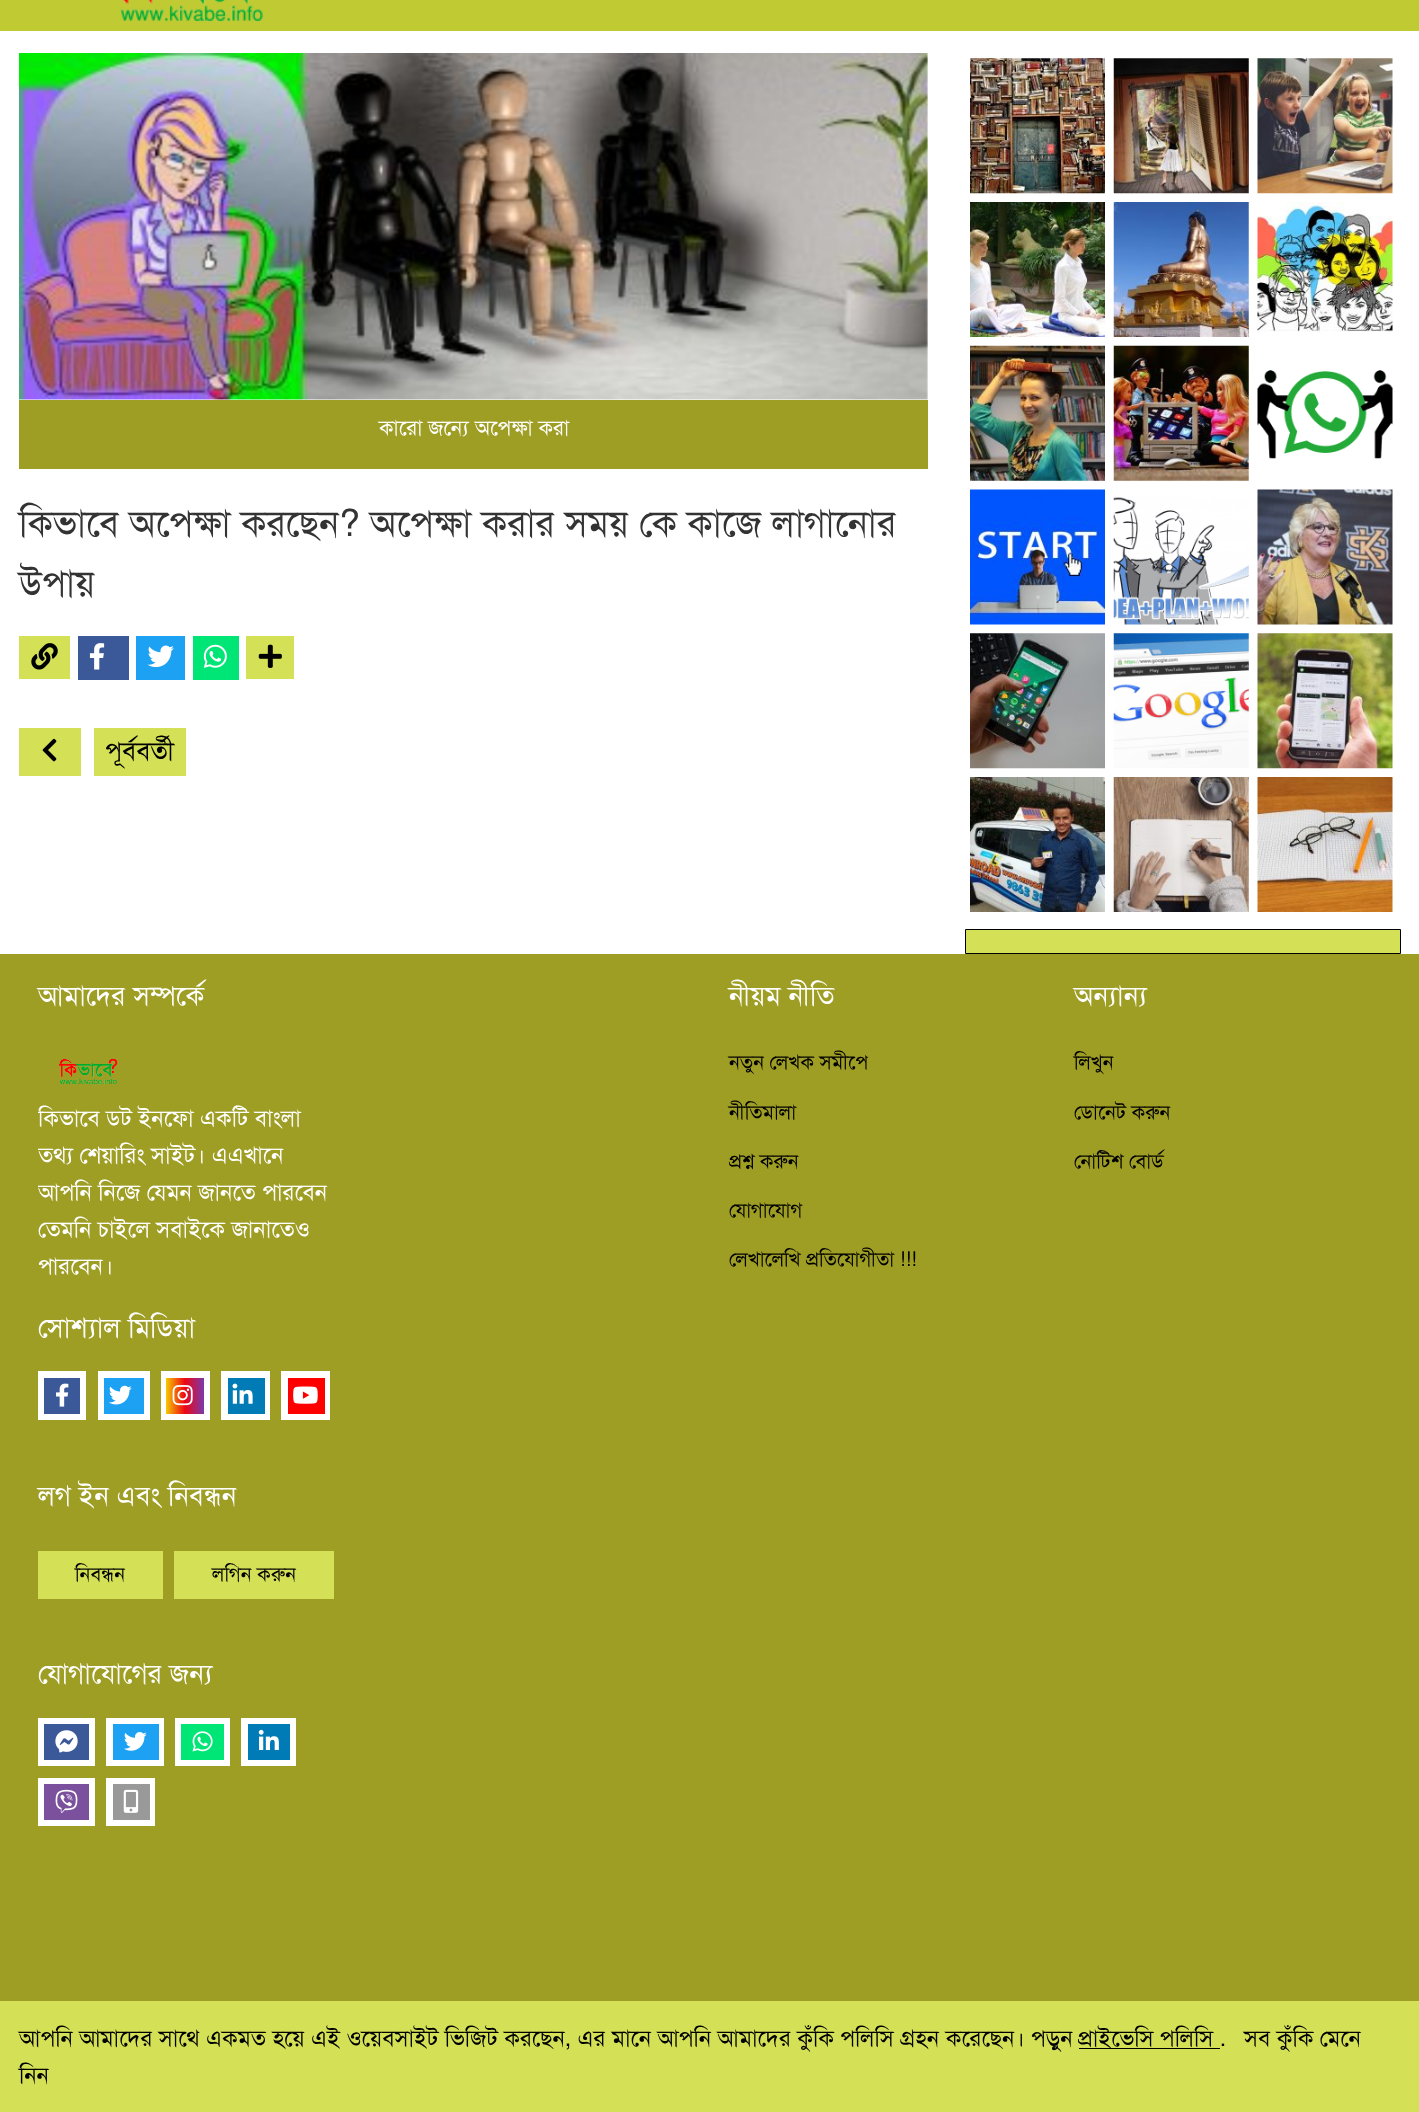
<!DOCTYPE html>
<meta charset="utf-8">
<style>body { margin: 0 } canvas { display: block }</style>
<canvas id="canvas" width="1419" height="2112"></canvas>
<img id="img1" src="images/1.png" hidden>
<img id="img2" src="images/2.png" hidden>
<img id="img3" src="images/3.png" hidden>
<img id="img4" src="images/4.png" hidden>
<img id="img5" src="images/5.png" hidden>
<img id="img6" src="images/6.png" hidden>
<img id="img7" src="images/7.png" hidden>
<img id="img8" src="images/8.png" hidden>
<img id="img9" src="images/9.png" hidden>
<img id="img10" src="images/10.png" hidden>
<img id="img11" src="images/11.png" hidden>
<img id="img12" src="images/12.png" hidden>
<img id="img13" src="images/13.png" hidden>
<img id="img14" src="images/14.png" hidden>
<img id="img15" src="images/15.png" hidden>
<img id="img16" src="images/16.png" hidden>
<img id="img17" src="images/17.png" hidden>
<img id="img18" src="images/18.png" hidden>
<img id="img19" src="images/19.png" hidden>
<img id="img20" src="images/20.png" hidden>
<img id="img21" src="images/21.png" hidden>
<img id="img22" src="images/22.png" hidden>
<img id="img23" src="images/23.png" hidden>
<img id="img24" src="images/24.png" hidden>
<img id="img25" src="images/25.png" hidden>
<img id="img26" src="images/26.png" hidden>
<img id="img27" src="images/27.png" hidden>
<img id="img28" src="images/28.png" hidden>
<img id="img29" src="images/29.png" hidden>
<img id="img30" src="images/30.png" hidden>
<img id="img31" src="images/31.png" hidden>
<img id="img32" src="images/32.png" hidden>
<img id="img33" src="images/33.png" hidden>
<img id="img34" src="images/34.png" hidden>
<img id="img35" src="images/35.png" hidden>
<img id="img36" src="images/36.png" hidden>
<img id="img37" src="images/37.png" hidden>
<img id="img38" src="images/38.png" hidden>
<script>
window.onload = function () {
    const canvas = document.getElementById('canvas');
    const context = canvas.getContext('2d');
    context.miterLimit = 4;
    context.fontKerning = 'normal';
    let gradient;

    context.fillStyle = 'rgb(255, 255, 255)';
    context.fillRect(0, 0, 1419, 2112);
    context.fillStyle = 'rgb(192, 202, 51)';
    context.fillRect(0, 0, 1419, 31);
    context.drawImage(document.getElementById('img1'), 120, 0, 143, 22);
    context.drawImage(document.getElementById('img2'), 19, 53, 909, 347);
    context.fillStyle = 'rgb(158, 157, 36)';
    context.fillRect(19, 400, 909, 69);
    context.fillStyle = 'rgb(212, 225, 87)';
    context.fillRect(19, 636, 51, 43);
    context.drawImage(document.getElementById('img3'), 31, 643, 27, 27);
    context.fillStyle = 'rgb(59, 89, 152)';
    context.fillRect(78, 636, 51, 44);
    context.drawImage(document.getElementById('img4'), 89, 643, 16, 27);
    context.fillStyle = 'rgb(29, 161, 242)';
    context.fillRect(136, 636, 49, 44);
    context.drawImage(document.getElementById('img5'), 147, 645, 27, 23);
    context.fillStyle = 'rgb(0, 230, 118)';
    context.fillRect(193, 636, 46, 44);
    context.drawImage(document.getElementById('img6'), 203, 644, 24, 24);
    context.fillStyle = 'rgb(212, 225, 87)';
    context.fillRect(246, 636, 48, 43);
    context.drawImage(document.getElementById('img7'), 258, 644, 24, 24);
    context.fillRect(19, 728, 62, 48);
    context.drawImage(document.getElementById('img8'), 42, 738, 15, 24);
    context.fillRect(94, 728, 92, 48);
    context.drawImage(document.getElementById('img9'), 970, 58, 135, 136);
    context.drawImage(document.getElementById('img10'), 1113, 58, 136, 136);
    context.drawImage(document.getElementById('img11'), 1257, 58, 136, 136);
    context.drawImage(document.getElementById('img12'), 970, 202, 135, 135);
    context.drawImage(document.getElementById('img13'), 1113, 202, 136, 135);
    context.drawImage(document.getElementById('img14'), 1257, 202, 136, 130);
    context.drawImage(document.getElementById('img15'), 970, 345, 135, 136);
    context.drawImage(document.getElementById('img16'), 1113, 345, 136, 136);
    context.drawImage(document.getElementById('img17'), 1257, 370, 136, 89);
    context.drawImage(document.getElementById('img18'), 970, 489, 135, 136);
    context.drawImage(document.getElementById('img19'), 1113, 497, 136, 128);
    context.drawImage(document.getElementById('img20'), 1257, 489, 136, 136);
    context.drawImage(document.getElementById('img21'), 970, 633, 135, 136);
    context.drawImage(document.getElementById('img22'), 1113, 633, 136, 135);
    context.drawImage(document.getElementById('img23'), 1257, 633, 136, 136);
    context.drawImage(document.getElementById('img24'), 970, 777, 135, 135);
    context.drawImage(document.getElementById('img25'), 1113, 777, 136, 135);
    context.drawImage(document.getElementById('img26'), 1257, 777, 136, 135);
    context.beginPath();
    context.rect(965.5, 929.5, 435, 24);
    context.fill();
    context.strokeStyle = 'rgb(0, 0, 0)';
    context.stroke();
    context.fillStyle = 'rgb(158, 157, 36)';
    context.fillRect(0, 954, 1419, 1047);
    context.drawImage(document.getElementById('img27'), 59, 1059, 59, 26);
    context.fillStyle = 'rgb(255, 255, 255)';
    context.fillRect(38, 1371, 48, 49);
    context.fillStyle = 'rgb(59, 89, 152)';
    context.fillRect(44, 1378, 36, 36);
    context.drawImage(document.getElementById('img28'), 56, 1383, 13, 24);
    context.fillStyle = 'rgb(255, 255, 255)';
    context.fillRect(98, 1371, 52, 49);
    context.fillStyle = 'rgb(29, 161, 242)';
    context.fillRect(104, 1378, 40, 36);
    context.drawImage(document.getElementById('img29'), 109, 1385, 23, 20);
    context.fillStyle = 'rgb(255, 255, 255)';
    context.fillRect(161, 1371, 49, 49);
    gradient = context.createLinearGradient(166, 1396, 204, 1396);
    gradient.addColorStop(0, 'rgb(246, 200, 0)');
    gradient.addColorStop(0.5, 'rgb(237, 5, 20)');
    gradient.addColorStop(1, 'rgb(124, 57, 173)');
    context.fillStyle = gradient;
    context.fillRect(166, 1378, 38, 36);
    context.drawImage(document.getElementById('img30'), 172, 1385, 21, 21);
    context.fillStyle = 'rgb(255, 255, 255)';
    context.fillRect(221, 1371, 49, 49);
    context.fillStyle = 'rgb(0, 123, 182)';
    context.fillRect(228, 1378, 37, 36);
    context.drawImage(document.getElementById('img31'), 232, 1383, 21, 21);
    context.fillStyle = 'rgb(255, 255, 255)';
    context.fillRect(281, 1371, 49, 49);
    context.fillStyle = 'rgb(255, 0, 0)';
    context.fillRect(288, 1378, 37, 36);
    context.drawImage(document.getElementById('img32'), 293, 1386, 25, 18);
    context.fillStyle = 'rgb(212, 225, 87)';
    context.fillRect(38, 1551, 125, 48);
    context.fillRect(174, 1551, 160, 48);
    context.fillStyle = 'rgb(255, 255, 255)';
    context.fillRect(38, 1718, 57, 48);
    context.fillStyle = 'rgb(59, 89, 152)';
    context.fillRect(44, 1724, 45, 36);
    context.drawImage(document.getElementById('img33'), 55, 1730, 23, 23);
    context.fillStyle = 'rgb(255, 255, 255)';
    context.fillRect(106, 1718, 58, 48);
    context.fillStyle = 'rgb(29, 161, 242)';
    context.fillRect(113, 1724, 46, 36);
    context.drawImage(document.getElementById('img34'), 124, 1732, 23, 19);
    context.fillStyle = 'rgb(255, 255, 255)';
    context.fillRect(175, 1718, 55, 48);
    context.fillStyle = 'rgb(0, 230, 118)';
    context.fillRect(181, 1724, 43, 36);
    context.drawImage(document.getElementById('img35'), 192, 1731, 21, 21);
    context.fillStyle = 'rgb(255, 255, 255)';
    context.fillRect(241, 1718, 55, 48);
    context.fillStyle = 'rgb(0, 123, 182)';
    context.fillRect(248, 1724, 42, 36);
    context.drawImage(document.getElementById('img36'), 258, 1729, 21, 21);
    context.fillStyle = 'rgb(255, 255, 255)';
    context.fillRect(38, 1778, 57, 48);
    context.fillStyle = 'rgb(123, 81, 157)';
    context.fillRect(44, 1784, 45, 36);
    context.drawImage(document.getElementById('img37'), 55, 1789, 23, 24);
    context.fillStyle = 'rgb(255, 255, 255)';
    context.fillRect(106, 1778, 49, 48);
    context.fillStyle = 'rgb(153, 153, 153)';
    context.fillRect(113, 1784, 37, 36);
    context.drawImage(document.getElementById('img38'), 123, 1789, 16, 24);
    context.fillStyle = 'rgb(212, 225, 87)';
    context.fillRect(0, 2001, 1419, 111);
    context.fillStyle = 'rgb(0, 0, 0)';
    context.fillRect(1079, 2048, 141, 1);
    context.font = '21.25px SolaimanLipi';
    context.fillStyle = 'rgb(255, 255, 255)';
    context.fillText('কারো জন্যে অপেক্ষা করা', 379, 435);
    context.font = '37.25px SolaimanLipi';
    context.fillStyle = 'rgb(51, 51, 51)';
    context.fillText('কিভাবে অপেক্ষা করছেন? অপেক্ষা করার সময় কে কাজে লাগানোর', 19, 536);
    context.fillText('উপায়', 19, 596);
    context.font = '26.5px SolaimanLipi';
    context.fillStyle = 'rgb(0, 0, 0)';
    context.fillText('পূর্ববর্তী', 105, 760);
    context.font = '27.5px SolaimanLipi';
    context.fillStyle = 'rgb(255, 255, 255)';
    context.fillText('আমাদের সম্পর্কে', 38, 1005);
    context.save();
    context.beginPath();
    context.rect(38, 1100, 303, 184);
    context.clip();
    context.font = '23px SolaimanLipi';
    context.fillText('কিভাবে ডট ইনফো একটি বাংলা', 38, 1126);
    context.fillText('তথ্য শেয়ারিং সাইট। এএখানে', 38, 1163);
    context.fillText('আপনি নিজে যেমন জানতে পারবেন', 38, 1200);
    context.fillText('তেমনি চাইলে সবাইকে জানাতেও', 38, 1237);
    context.fillText('পারবেন।', 38, 1274);
    context.restore();
    context.fillText('সোশ্যাল মিডিয়া', 38, 1337);
    context.fillText('লগ ইন এবং নিবন্ধন', 38, 1505);
    context.font = '20.1px SolaimanLipi';
    context.fillStyle = 'rgb(0, 0, 0)';
    context.fillText('নিবন্ধন', 75, 1581);
    context.fillText('লগিন করুন', 212, 1581);
    context.font = '27.5px SolaimanLipi';
    context.fillStyle = 'rgb(255, 255, 255)';
    context.fillText('যোগাযোগের জন্য', 38, 1683);
    context.fillText('নীয়ম নীতি', 729, 1005);
    context.font = '20.1px SolaimanLipi';
    context.fillStyle = 'rgb(0, 0, 0)';
    context.fillText('নতুন লেখক সমীপে', 729, 1069);
    context.fillText('নীতিমালা', 729, 1119);
    context.fillText('প্রশ্ন করুন', 729, 1168);
    context.fillText('যোগাযোগ', 729, 1217);
    context.fillText('লেখালেখি প্রতিযোগীতা !!!', 729, 1266);
    context.font = '27.5px SolaimanLipi';
    context.fillStyle = 'rgb(255, 255, 255)';
    context.fillText('অন্যান্য', 1074, 1005);
    context.font = '20.1px SolaimanLipi';
    context.fillStyle = 'rgb(0, 0, 0)';
    context.fillText('লিখুন', 1074, 1069);
    context.fillText('ডোনেট করুন', 1074, 1119);
    context.fillText('নোটিশ বোর্ড', 1074, 1168);
    context.font = '23px SolaimanLipi';
    context.fillText('আপনি আমাদের সাথে একমত হয়ে এই ওয়েবসাইট ভিজিট করছেন, এর মানে আপনি আমাদের কুঁকি পলিসি গ্রহন করেছেন। পড়ুন', 19, 2046);
    context.fillText('প্রাইভেসি পলিসি .', 1078, 2046);
    context.fillText('সব কুঁকি মেনে', 1244, 2046);
    context.fillText('নিন', 19, 2083);
};
</script>
